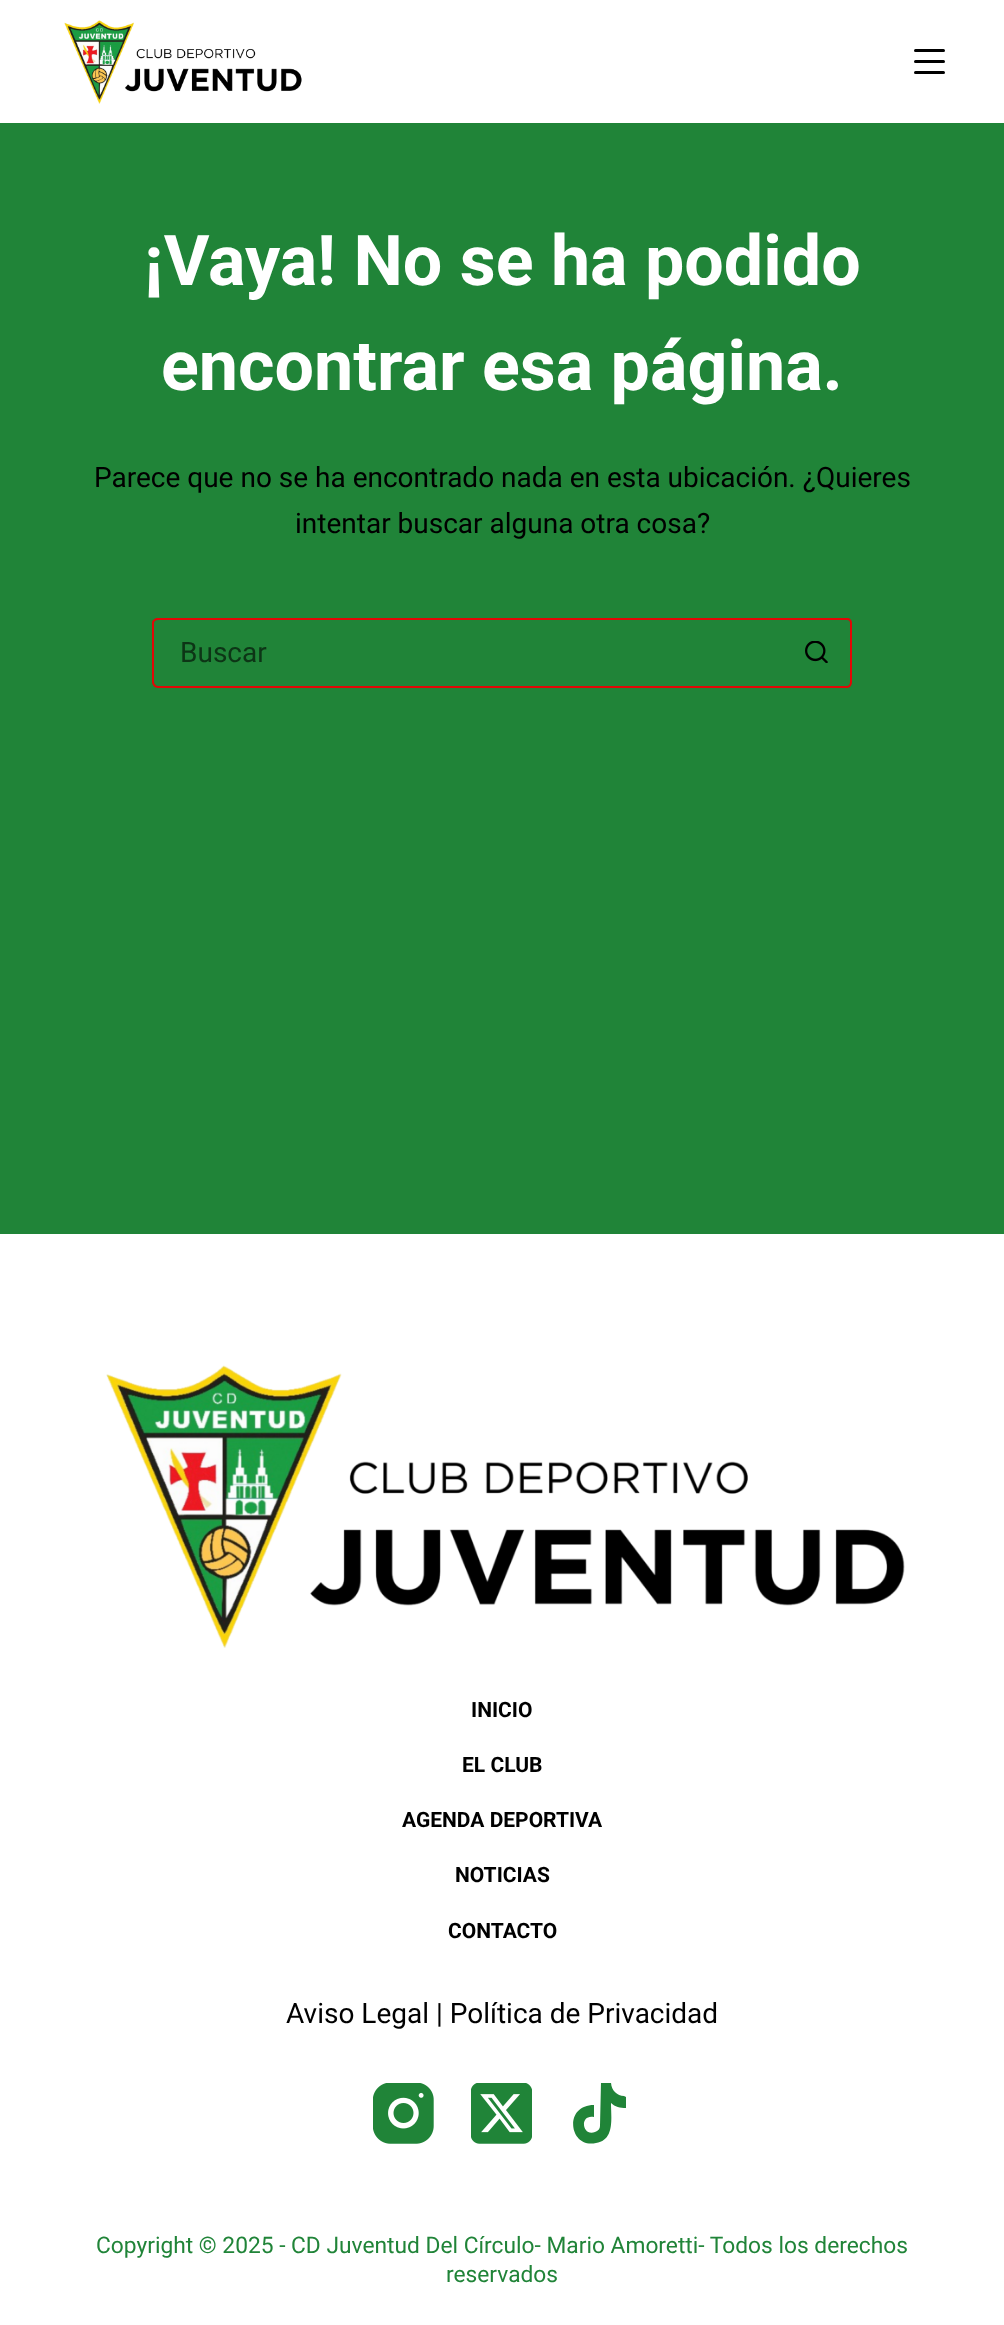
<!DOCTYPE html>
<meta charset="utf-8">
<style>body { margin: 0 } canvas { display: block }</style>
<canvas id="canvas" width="1004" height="2325"></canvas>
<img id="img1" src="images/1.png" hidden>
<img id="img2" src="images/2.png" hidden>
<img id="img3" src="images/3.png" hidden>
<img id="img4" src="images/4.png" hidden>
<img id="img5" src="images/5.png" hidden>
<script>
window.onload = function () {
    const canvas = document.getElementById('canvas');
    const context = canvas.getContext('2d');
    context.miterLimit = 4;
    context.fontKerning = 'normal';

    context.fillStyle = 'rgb(32, 132, 56)';
    context.fillRect(0, 0, 1004, 2325);
    context.fillStyle = 'rgb(255, 255, 255)';
    context.fillRect(0, 0, 1004, 123);
    context.drawImage(document.getElementById('img1'), 64, 20, 238, 84);
    context.fillStyle = 'rgb(0, 0, 0)';
    context.beginPath();
    context.roundRect(914, 49, 31, 3, 1.5);
    context.fill();
    context.beginPath();
    context.roundRect(914, 60, 31, 3, 1.5);
    context.fill();
    context.beginPath();
    context.roundRect(914, 71, 31, 3, 1.5);
    context.fill();
    context.fillStyle = 'rgb(226, 6, 6)';
    context.beginPath();
    context.moveTo(158, 618);
    context.lineTo(782, 618);
    context.lineTo(782, 688);
    context.lineTo(158, 688);
    context.bezierCurveTo(155, 688, 152, 685, 152, 682);
    context.lineTo(152, 623);
    context.bezierCurveTo(152, 620, 155, 618, 158, 618);
    context.closePath();
    context.moveTo(158, 620);
    context.lineTo(782, 620);
    context.lineTo(782, 686);
    context.lineTo(158, 686);
    context.bezierCurveTo(156, 686, 154, 684, 154, 682);
    context.lineTo(154, 623);
    context.bezierCurveTo(154, 621, 156, 620, 158, 620);
    context.closePath();
    context.fill('evenodd');
    context.beginPath();
    context.moveTo(782, 618);
    context.lineTo(847, 618);
    context.bezierCurveTo(850, 618, 852, 620, 852, 623);
    context.lineTo(852, 682);
    context.bezierCurveTo(852, 685, 850, 688, 847, 688);
    context.lineTo(782, 688);
    context.closePath();
    context.moveTo(782, 620);
    context.lineTo(847, 620);
    context.bezierCurveTo(849, 620, 850, 621, 850, 623);
    context.lineTo(850, 682);
    context.bezierCurveTo(850, 684, 849, 686, 847, 686);
    context.lineTo(782, 686);
    context.closePath();
    context.fill('evenodd');
    context.drawImage(document.getElementById('img2'), 805, 641, 23, 22);
    context.fillStyle = 'rgb(255, 255, 255)';
    context.fillRect(0, 1234, 1004, 1091);
    context.drawImage(document.getElementById('img3'), 106, 1365, 799, 283);
    context.drawImage(document.getElementById('img4'), 373, 2083, 61, 61);
    context.drawImage(document.getElementById('img5'), 471, 2083, 61, 61);
    context.save();
    context.beginPath();
    context.rect(569, 2083, 61, 61);
    context.clip();
    context.fillStyle = 'rgb(32, 132, 56)';
    context.beginPath();
    context.moveTo(624, 2096);
    context.bezierCurveTo(617, 2096, 611, 2090, 611, 2082);
    context.lineTo(601, 2082);
    context.lineTo(600, 2126);
    context.bezierCurveTo(600, 2129, 598, 2131, 595, 2132);
    context.bezierCurveTo(582, 2137, 579, 2114, 594, 2117);
    context.lineTo(594, 2105);
    context.bezierCurveTo(563, 2105, 569, 2149, 596, 2143);
    context.bezierCurveTo(615, 2140, 611, 2118, 611, 2103);
    context.bezierCurveTo(615, 2107, 620, 2108, 626, 2108);
    context.lineTo(626, 2097);
    context.closePath();
    context.fill();
    context.restore();
    context.font = 'bold 70px Roboto';
    context.fillText('¡Vaya! No se ha podido', 144, 285);
    context.fillText('encontrar esa página.', 161, 390);
    context.font = '28px Roboto';
    context.fillStyle = 'rgb(0, 0, 0)';
    context.fillText('Parece que no se ha encontrado nada en esta ubicación. ¿Quieres', 94, 487);
    context.fillText('intentar buscar alguna otra cosa?', 295, 533);
    context.fillStyle = 'rgb(13, 53, 22)';
    context.fillText('Buscar', 180, 662);
    context.font = 'bold 21px Roboto';
    context.fillStyle = 'rgb(0, 0, 0)';
    context.fillText('INICIO', 471, 1717);
    context.fillText('EL CLUB', 462, 1772);
    context.fillText('AGENDA DEPORTIVA', 402, 1827);
    context.fillText('NOTICIAS', 455, 1882);
    context.fillText('CONTACTO', 448, 1938);
    context.font = '28px Roboto';
    context.fillText('Aviso Legal | Política de Privacidad', 286, 2023);
    context.font = '22.75px Roboto';
    context.fillStyle = 'rgb(32, 132, 56)';
    context.fillText('Copyright © 2025 - CD Juventud Del Círculo- Mario Amoretti- Todos los derechos', 96, 2253);
    context.fillText('reservados', 446, 2282);
};
</script>
